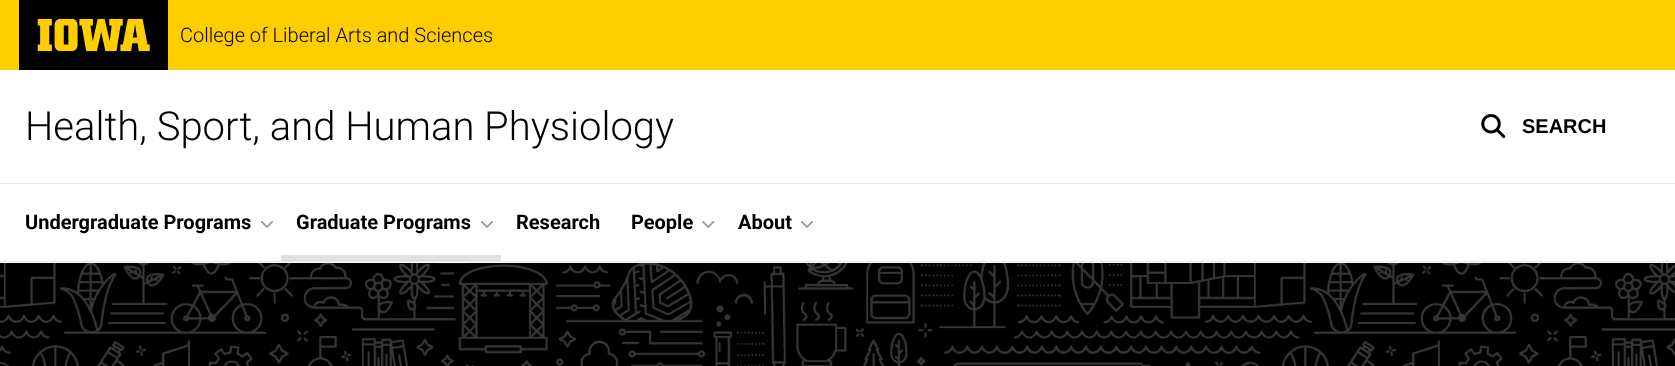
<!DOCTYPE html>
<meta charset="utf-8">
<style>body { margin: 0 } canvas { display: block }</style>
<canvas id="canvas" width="1675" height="366"></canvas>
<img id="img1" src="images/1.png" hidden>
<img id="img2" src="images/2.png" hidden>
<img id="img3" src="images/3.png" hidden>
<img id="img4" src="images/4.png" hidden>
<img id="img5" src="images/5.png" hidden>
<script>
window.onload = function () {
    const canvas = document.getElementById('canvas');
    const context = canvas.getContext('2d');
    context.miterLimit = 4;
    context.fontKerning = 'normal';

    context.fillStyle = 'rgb(255, 255, 255)';
    context.fillRect(0, 0, 1675, 366);
    context.fillStyle = 'rgb(255, 205, 0)';
    context.fillRect(0, 0, 1675, 70);
    context.fillStyle = 'rgb(0, 0, 0)';
    context.fillRect(19, 0, 149, 70);
    context.drawImage(document.getElementById('img1'), 37, 18, 113, 34);
    context.fillStyle = 'rgb(230, 229, 229)';
    context.fillRect(0, 183, 1675, 1);
    context.drawImage(document.getElementById('img2'), 1481, 114, 25, 24);
    context.fillRect(0, 261, 1675, 1);
    context.drawImage(document.getElementById('img3'), 261, 221, 12, 7);
    context.drawImage(document.getElementById('img3'), 481, 221, 12, 7);
    context.fillStyle = 'rgb(225, 225, 225)';
    context.fillRect(281, 255, 220, 6);
    context.drawImage(document.getElementById('img4'), 702, 221, 13, 7);
    context.drawImage(document.getElementById('img3'), 801, 221, 12, 7);
    context.fillStyle = 'rgb(0, 0, 0)';
    context.fillRect(0, 263, 1675, 103);
    context.drawImage(document.getElementById('img5'), 0, 263, 1675, 103);
    context.font = '300 20px Roboto';
    context.fillText('College of Liberal Arts and Sciences', 180, 42);
    context.font = '300 40px Roboto';
    context.fillText('Health, Sport, and Human Physiology', 25, 140);
    context.font = 'bold 20px Liberation Sans';
    context.fillText('SEARCH', 1522, 133);
    context.font = 'bold 20px Roboto';
    context.fillText('Undergraduate Programs', 25, 229);
    context.fillText('Graduate Programs', 296, 229);
    context.fillText('Research', 516, 229);
    context.fillText('People', 631, 229);
    context.fillText('About', 738, 229);
};
</script>
